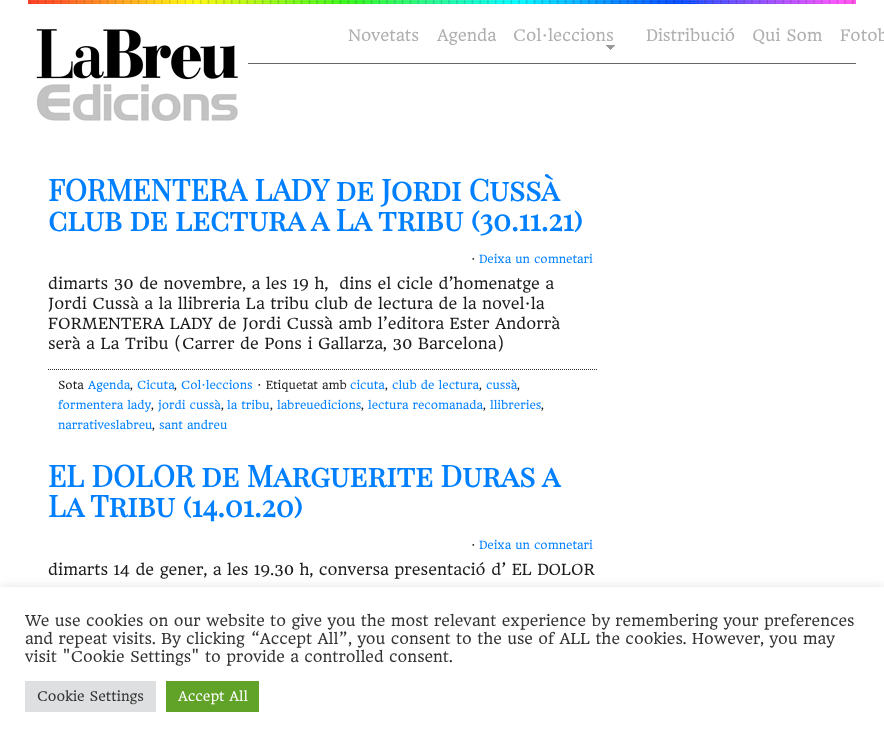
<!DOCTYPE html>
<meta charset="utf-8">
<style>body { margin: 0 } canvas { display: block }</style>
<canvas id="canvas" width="884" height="742"></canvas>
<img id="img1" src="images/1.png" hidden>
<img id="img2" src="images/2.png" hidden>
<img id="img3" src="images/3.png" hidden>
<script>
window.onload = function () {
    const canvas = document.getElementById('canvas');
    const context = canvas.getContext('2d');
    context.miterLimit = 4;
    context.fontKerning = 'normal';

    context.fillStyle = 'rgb(255, 255, 255)';
    context.fillRect(0, 0, 884, 742);
    context.drawImage(document.getElementById('img1'), 28, 0, 828, 4);
    context.fillStyle = 'rgb(102, 102, 102)';
    context.fillRect(248, 63, 608, 1);
    context.drawImage(document.getElementById('img2'), 28, 29, 220, 92);
    context.drawImage(document.getElementById('img3'), 606, 45, 9, 5);
    context.beginPath();
    context.moveTo(48, 369.5);
    context.lineTo(597, 369.5);
    context.strokeStyle = 'rgb(51, 51, 51)';
    context.setLineDash([1, 1]);
    context.stroke();
    context.fillStyle = 'rgba(172, 171, 171, 0.3)';
    context.filter = 'blur(5px)';
    context.beginPath();
    context.rect(0, 586, 884, 155);
    context.fill();
    context.filter = 'none';
    context.fillStyle = 'rgb(255, 255, 255)';
    context.fillRect(0, 587, 884, 155);
    context.fillStyle = 'rgb(222, 223, 224)';
    context.fillRect(25, 681, 131, 31);
    context.fillStyle = 'rgb(97, 162, 41)';
    context.fillRect(166, 681, 93, 31);
    context.font = '15.5px HeadlandOne';
    context.fillStyle = 'rgb(175, 175, 175)';
    context.fillText('Novetats', 348, 41);
    context.fillText('Agenda', 437, 41);
    context.fillText('Col·leccions', 513, 41);
    context.fillText('Distribució', 646, 41);
    context.fillText('Qui Som', 752, 41);
    context.fillText('Fotob', 840, 41);
    context.font = 'bold 30px Playfair Display SC';
    context.fillStyle = 'rgb(0, 128, 255)';
    context.fillText('FORMENTERA LADY de Jordi Cussà', 48, 201);
    context.fillText('club de lectura a La tribu (30.11.21)', 48, 231);
    context.font = '11px HeadlandOne';
    context.fillStyle = 'rgb(29, 26, 26)';
    context.fillText('·', 471, 263);
    context.fillStyle = 'rgb(0, 128, 255)';
    context.fillText('Deixa un comnetari', 479, 263);
    context.font = '15px HeadlandOne';
    context.fillStyle = 'rgb(29, 26, 26)';
    context.fillText('dimarts 30 de novembre, a les 19 h,  dins el cicle d’homenatge a', 48, 289);
    context.fillText('Jordi Cussà a la llibreria La tribu club de lectura de la novel·la', 48, 309);
    context.fillText('FORMENTERA LADY de Jordi Cussà amb l’editora Ester Andorrà', 48, 329);
    context.fillText('serà a La Tribu (Carrer de Pons i Gallarza, 30 Barcelona)', 48, 349);
    context.font = '11px HeadlandOne';
    context.fillText('Sota', 58, 389);
    context.fillStyle = 'rgb(0, 128, 255)';
    context.fillText('Agenda', 88, 389);
    context.fillStyle = 'rgb(29, 26, 26)';
    context.fillText(',', 130, 389);
    context.fillStyle = 'rgb(0, 128, 255)';
    context.fillText('Cicuta', 137, 389);
    context.fillStyle = 'rgb(29, 26, 26)';
    context.fillText(',', 174, 389);
    context.fillStyle = 'rgb(0, 128, 255)';
    context.fillText('Col·leccions', 181, 389);
    context.fillStyle = 'rgb(29, 26, 26)';
    context.fillText('· Etiquetat amb', 257, 389);
    context.fillStyle = 'rgb(0, 128, 255)';
    context.fillText('cicuta', 350, 389);
    context.fillStyle = 'rgb(29, 26, 26)';
    context.fillText(',', 385, 389);
    context.fillStyle = 'rgb(0, 128, 255)';
    context.fillText('club de lectura', 392, 389);
    context.fillStyle = 'rgb(29, 26, 26)';
    context.fillText(',', 479, 389);
    context.fillStyle = 'rgb(0, 128, 255)';
    context.fillText('cussà', 486, 389);
    context.fillStyle = 'rgb(29, 26, 26)';
    context.fillText(',', 517, 389);
    context.fillStyle = 'rgb(0, 128, 255)';
    context.fillText('formentera lady', 58, 409);
    context.fillStyle = 'rgb(29, 26, 26)';
    context.fillText(',', 151, 409);
    context.fillStyle = 'rgb(0, 128, 255)';
    context.fillText('jordi cussà', 158, 409);
    context.fillStyle = 'rgb(29, 26, 26)';
    context.fillText(',', 221, 409);
    context.fillStyle = 'rgb(0, 128, 255)';
    context.fillText('la tribu', 227, 409);
    context.fillStyle = 'rgb(29, 26, 26)';
    context.fillText(',', 270, 409);
    context.fillStyle = 'rgb(0, 128, 255)';
    context.fillText('labreuedicions', 277, 409);
    context.fillStyle = 'rgb(29, 26, 26)';
    context.fillText(',', 361, 409);
    context.fillStyle = 'rgb(0, 128, 255)';
    context.fillText('lectura recomanada', 368, 409);
    context.fillStyle = 'rgb(29, 26, 26)';
    context.fillText(',', 483, 409);
    context.fillStyle = 'rgb(0, 128, 255)';
    context.fillText('llibreries', 490, 409);
    context.fillStyle = 'rgb(29, 26, 26)';
    context.fillText(',', 541, 409);
    context.fillStyle = 'rgb(0, 128, 255)';
    context.fillText('narrativeslabreu', 58, 429);
    context.fillStyle = 'rgb(29, 26, 26)';
    context.fillText(',', 152, 429);
    context.fillStyle = 'rgb(0, 128, 255)';
    context.fillText('sant andreu', 159, 429);
    context.font = 'bold 30px Playfair Display SC';
    context.fillText('EL DOLOR de Marguerite Duras a', 48, 487);
    context.fillText('La Tribu (14.01.20)', 48, 517);
    context.font = '11px HeadlandOne';
    context.fillStyle = 'rgb(29, 26, 26)';
    context.fillText('·', 471, 549);
    context.fillStyle = 'rgb(0, 128, 255)';
    context.fillText('Deixa un comnetari', 479, 549);
    context.font = '15px HeadlandOne';
    context.fillStyle = 'rgb(29, 26, 26)';
    context.fillText('dimarts 14 de gener, a les 19.30 h, conversa presentació d’ EL DOLOR', 48, 575);
    context.font = '14.67px HeadlandOne';
    context.fillStyle = 'rgb(51, 51, 51)';
    context.fillText('We use cookies on our website to give you the most relevant experience by remembering your preferences', 25, 626);
    context.fillText('and repeat visits. By clicking “Accept All”, you consent to the use of ALL the cookies. However, you may', 25, 644);
    context.fillText('visit "Cookie Settings" to provide a controlled consent.', 25, 662);
    context.font = '13px HeadlandOne';
    context.fillText('Cookie Settings', 37, 701);
    context.fillStyle = 'rgb(255, 255, 255)';
    context.fillText('Accept All', 178, 701);
};
</script>
